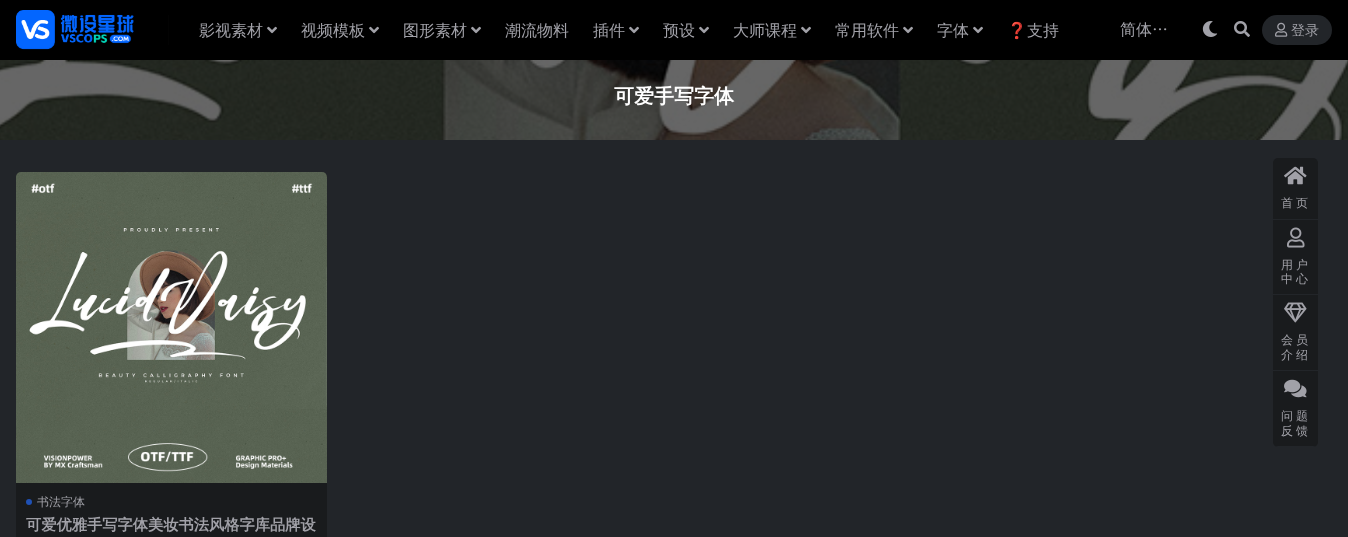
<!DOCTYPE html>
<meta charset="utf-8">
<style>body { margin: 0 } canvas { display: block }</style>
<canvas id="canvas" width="1348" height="537"></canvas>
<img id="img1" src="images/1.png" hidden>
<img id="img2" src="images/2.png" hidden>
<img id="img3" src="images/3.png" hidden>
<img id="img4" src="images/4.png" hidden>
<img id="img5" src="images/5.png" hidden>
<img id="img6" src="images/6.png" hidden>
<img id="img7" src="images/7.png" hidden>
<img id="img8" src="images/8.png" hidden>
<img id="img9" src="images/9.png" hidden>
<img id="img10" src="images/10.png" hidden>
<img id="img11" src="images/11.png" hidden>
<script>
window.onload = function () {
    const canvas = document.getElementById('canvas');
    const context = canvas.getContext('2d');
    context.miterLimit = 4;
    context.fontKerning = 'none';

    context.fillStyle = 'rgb(34, 37, 41)';
    context.fillRect(0, 0, 1348, 537);
    context.fillStyle = 'rgb(0, 0, 0)';
    context.fillRect(0, 0, 1348, 60);
    context.drawImage(document.getElementById('img1'), 16, 10, 118, 40);
    context.fillStyle = 'rgb(3, 3, 3)';
    context.fillRect(168, 15, 1, 30);
    context.drawImage(document.getElementById('img2'), 267, 26, 10, 8);
    context.drawImage(document.getElementById('img2'), 369, 26, 10, 8);
    context.drawImage(document.getElementById('img2'), 471, 26, 10, 8);
    context.drawImage(document.getElementById('img2'), 629, 26, 10, 8);
    context.drawImage(document.getElementById('img2'), 699, 26, 10, 8);
    context.drawImage(document.getElementById('img2'), 801, 26, 10, 8);
    context.drawImage(document.getElementById('img2'), 903, 26, 10, 8);
    context.drawImage(document.getElementById('img2'), 973, 26, 10, 8);
    context.drawImage(document.getElementById('img3'), 1202, 21, 16, 16);
    context.drawImage(document.getElementById('img4'), 1234, 21, 16, 16);
    context.fillStyle = 'rgb(34, 37, 41)';
    context.beginPath();
    context.roundRect(1262, 15, 70, 30, 15);
    context.fill();
    context.drawImage(document.getElementById('img5'), 1275, 22, 13, 15);
    context.drawImage(document.getElementById('img6'), 0, 60, 1348, 80);
    context.fillStyle = 'rgb(25, 27, 29)';
    context.beginPath();
    context.roundRect(16, 172, 311, 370, 5);
    context.fill();
    context.drawImage(document.getElementById('img7'), 16, 172, 311, 311);
    context.fillStyle = 'rgb(31, 81, 181)';
    context.beginPath();
    context.arc(29, 502, 3, 0, 2 * Math.PI);
    context.fill();
    context.fillStyle = 'rgb(25, 27, 29)';
    context.beginPath();
    context.roundRect(1273, 158, 45, 62, [5, 5, 0, 0]);
    context.fill();
    context.fillStyle = 'rgb(34, 37, 41)';
    context.fillRect(1273, 219, 45, 1);
    context.drawImage(document.getElementById('img8'), 1284, 166, 23, 19);
    context.fillStyle = 'rgb(25, 27, 29)';
    context.fillRect(1273, 220, 45, 74);
    context.drawImage(document.getElementById('img9'), 1287, 227, 18, 21);
    context.fillRect(1273, 295, 45, 75);
    context.drawImage(document.getElementById('img10'), 1284, 302, 23, 21);
    context.beginPath();
    context.roundRect(1273, 371, 45, 76, [0, 0, 5, 5]);
    context.fill();
    context.save();
    context.beginPath();
    context.roundRect(1273, 158, 45, 289, 5);
    context.clip();
    context.fillStyle = 'rgb(34, 37, 41)';
    context.fillRect(1273, 446, 45, 1);
    context.restore();
    context.drawImage(document.getElementById('img11'), 1284, 379, 23, 19);
    context.font = '500 16px WenQuanYi Zen Hei';
    context.fillStyle = 'rgb(161, 161, 168)';
    context.fillText('影视素材', 199, 36);
    context.fillText('视频模板', 301, 36);
    context.fillText('图形素材', 403, 36);
    context.fillText('潮流物料', 505, 36);
    context.fillText('插件', 593, 36);
    context.fillText('预设', 663, 36);
    context.fillText('大师课程', 733, 36);
    context.fillText('常用软件', 835, 36);
    context.fillText('字体', 937, 36);
    context.font = '16px Noto Color Emoji';
    context.fillText('❓', 1007, 36);
    context.font = '500 16px WenQuanYi Zen Hei';
    context.fillText('支持', 1027, 36);
    context.fillText('简体…', 1120, 35);
    context.font = '500 14px WenQuanYi Zen Hei';
    context.fillText('登录', 1291, 35);
    context.font = 'bold 20px WenQuanYi Zen Hei';
    context.fillStyle = 'rgb(255, 255, 255)';
    context.fillText('可爱手写字体', 614, 103);
    context.font = '500 12px WenQuanYi Zen Hei';
    context.fillStyle = 'rgb(161, 161, 168)';
    context.fillText('书法字体', 37, 506);
    context.font = 'bold 15.25px WenQuanYi Zen Hei';
    context.fillText('可爱优雅手写字体美妆书法风格字库品牌设', 26, 530);
    context.letterSpacing = '3px';
    context.font = '500 12px WenQuanYi Zen Hei';
    context.fillText('首页', 1281, 207);
    context.fillText('用户', 1281, 269);
    context.fillText('中心', 1281, 283);
    context.fillText('会员', 1281, 344);
    context.fillText('介绍', 1281, 359);
    context.fillText('问题', 1281, 420);
    context.fillText('反馈', 1281, 435);
};
</script>
